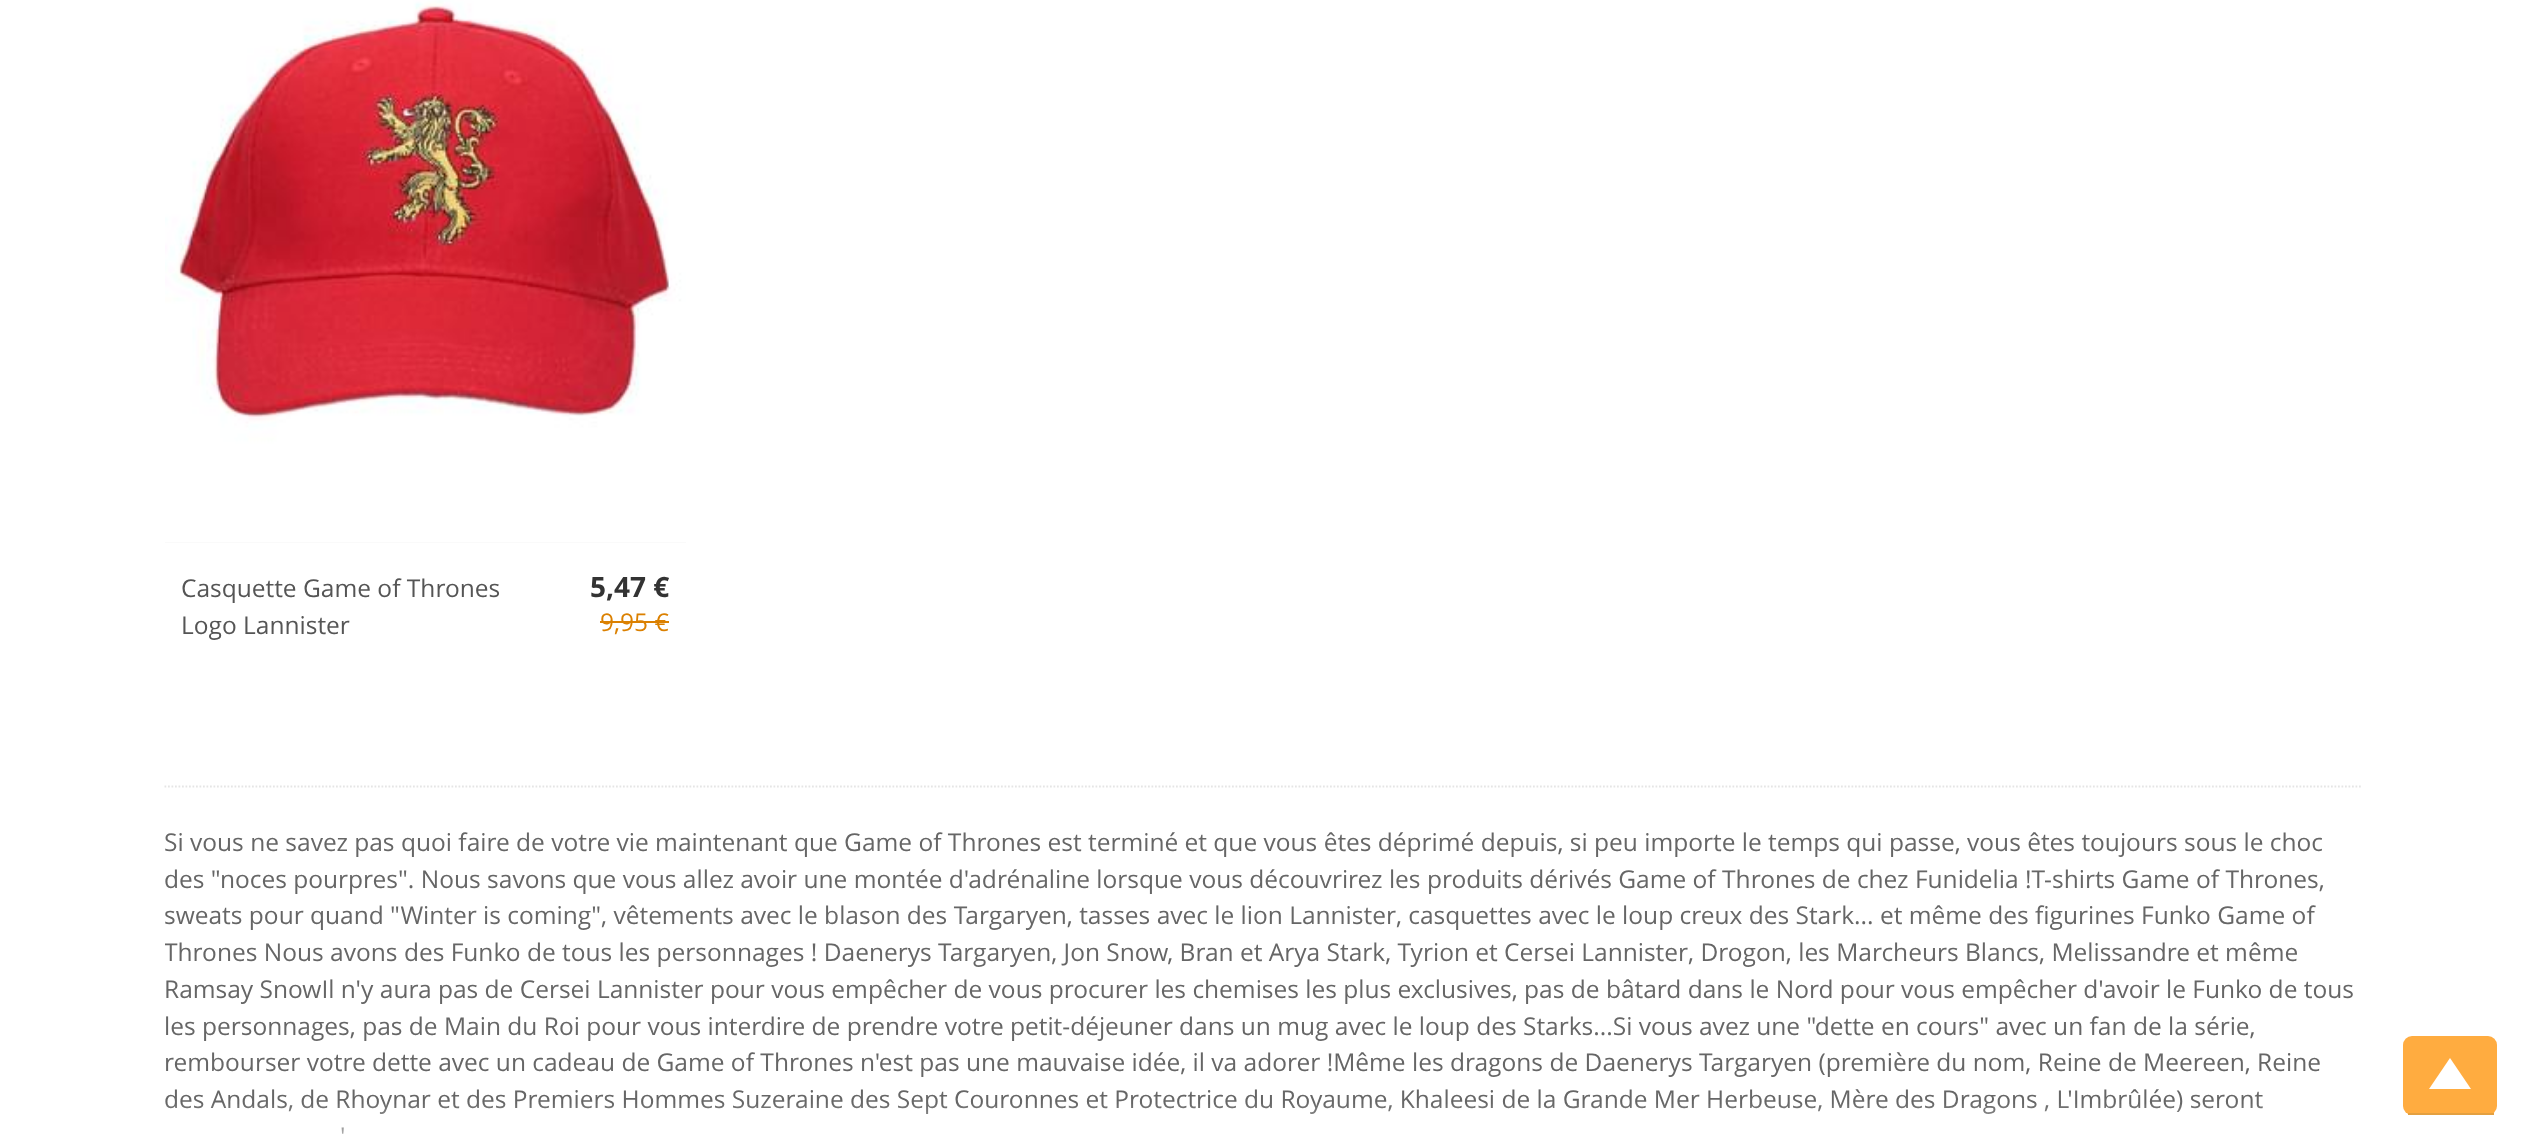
<!DOCTYPE html>
<meta charset="utf-8">
<style>body { margin: 0 } canvas { display: block }</style>
<canvas id="canvas" width="2523" height="1140"></canvas>
<img id="img1" src="images/1.png" hidden>
<script>
window.onload = function () {
    const canvas = document.getElementById('canvas');
    const context = canvas.getContext('2d');
    context.miterLimit = 4;
    context.fontKerning = 'normal';
    let gradient;

    context.fillStyle = 'rgb(255, 255, 255)';
    context.fillRect(0, 0, 2523, 1140);
    context.fillStyle = 'rgb(246, 246, 246)';
    context.fillRect(165, 0, 521, 543);
    context.drawImage(document.getElementById('img1'), 165, 0, 521, 543);
    context.fillStyle = 'rgb(219, 128, 0)';
    context.fillRect(600, 621, 69, 2);
    context.beginPath();
    context.moveTo(164.5, 786.5);
    context.lineTo(2361, 786.5);
    context.strokeStyle = 'rgb(229, 229, 229)';
    context.lineWidth = 1.8;
    context.setLineDash([1.75, 1.75]);
    context.stroke();
    context.fillStyle = 'rgb(255, 172, 64)';
    context.beginPath();
    context.roundRect(2403, 1036, 94, 79, 9);
    context.fill();
    context.fillStyle = 'rgb(228, 160, 64)';
    context.fillRect(2408, 1113, 86, 2);
    context.fillStyle = 'rgb(255, 255, 255)';
    context.beginPath();
    context.moveTo(2450, 1058);
    context.lineTo(2471, 1089);
    context.lineTo(2429, 1089);
    context.closePath();
    context.fill();
    context.font = '24.5px Open Sans';
    context.fillStyle = 'rgb(85, 85, 85)';
    context.fillText('Casquette Game of Thrones', 181, 597);
    context.fillText('Logo Lannister', 181, 634);
    context.font = 'bold 28px Open Sans';
    context.fillStyle = 'rgb(51, 51, 51)';
    context.fillText('5,47 €', 590, 597);
    context.font = '24.5px Open Sans';
    context.fillStyle = 'rgb(219, 128, 0)';
    context.fillText('9,95 €', 600, 631);
    context.fillStyle = 'rgb(102, 102, 102)';
    context.fillText('Si vous ne savez pas quoi faire de votre vie maintenant que Game of Thrones est terminé et que vous êtes déprimé depuis, si peu importe le temps qui passe, vous êtes toujours sous le choc', 164, 851);
    context.fillText('des "noces pourpres". Nous savons que vous allez avoir une montée d\'adrénaline lorsque vous découvrirez les produits dérivés Game of Thrones de chez Funidelia !T-shirts Game of Thrones,', 164, 888);
    context.fillText('sweats pour quand "Winter is coming", vêtements avec le blason des Targaryen, tasses avec le lion Lannister, casquettes avec le loup creux des Stark... et même des figurines Funko Game of', 164, 924);
    context.save();
    context.beginPath();
    context.rect(165, 823, 2196, 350);
    context.clip();
    context.fillText('Thrones Nous avons des Funko de tous les personnages ! Daenerys Targaryen, Jon Snow, Bran et Arya Stark, Tyrion et Cersei Lannister, Drogon, les Marcheurs Blancs, Melissandre et même', 164, 961);
    context.restore();
    context.fillText('Ramsay SnowIl n\'y aura pas de Cersei Lannister pour vous empêcher de vous procurer les chemises les plus exclusives, pas de bâtard dans le Nord pour vous empêcher d\'avoir le Funko de tous', 164, 998);
    context.fillText('les personnages, pas de Main du Roi pour vous interdire de prendre votre petit-déjeuner dans un mug avec le loup des Starks...Si vous avez une "dette en cours" avec un fan de la série,', 164, 1035);
    context.fillText('rembourser votre dette avec un cadeau de Game of Thrones n\'est pas une mauvaise idée, il va adorer !Même les dragons de Daenerys Targaryen (première du nom, Reine de Meereen, Reine', 164, 1071);
    context.fillText('des Andals, de Rhoynar et des Premiers Hommes Suzeraine des Sept Couronnes et Protectrice du Royaume, Khaleesi de la Grande Mer Herbeuse, Mère des Dragons , L\'Imbrûlée) seront', 164, 1108);
    context.fillText('\'', 340, 1145);
    gradient = context.createLinearGradient(1263, 1102, 1263, 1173);
    gradient.addColorStop(0, 'rgba(255, 255, 255, 0)');
    gradient.addColorStop(1, 'rgb(255, 255, 255)');
    context.fillStyle = gradient;
    context.fillRect(165, 1104, 2097, 30);
};
</script>
